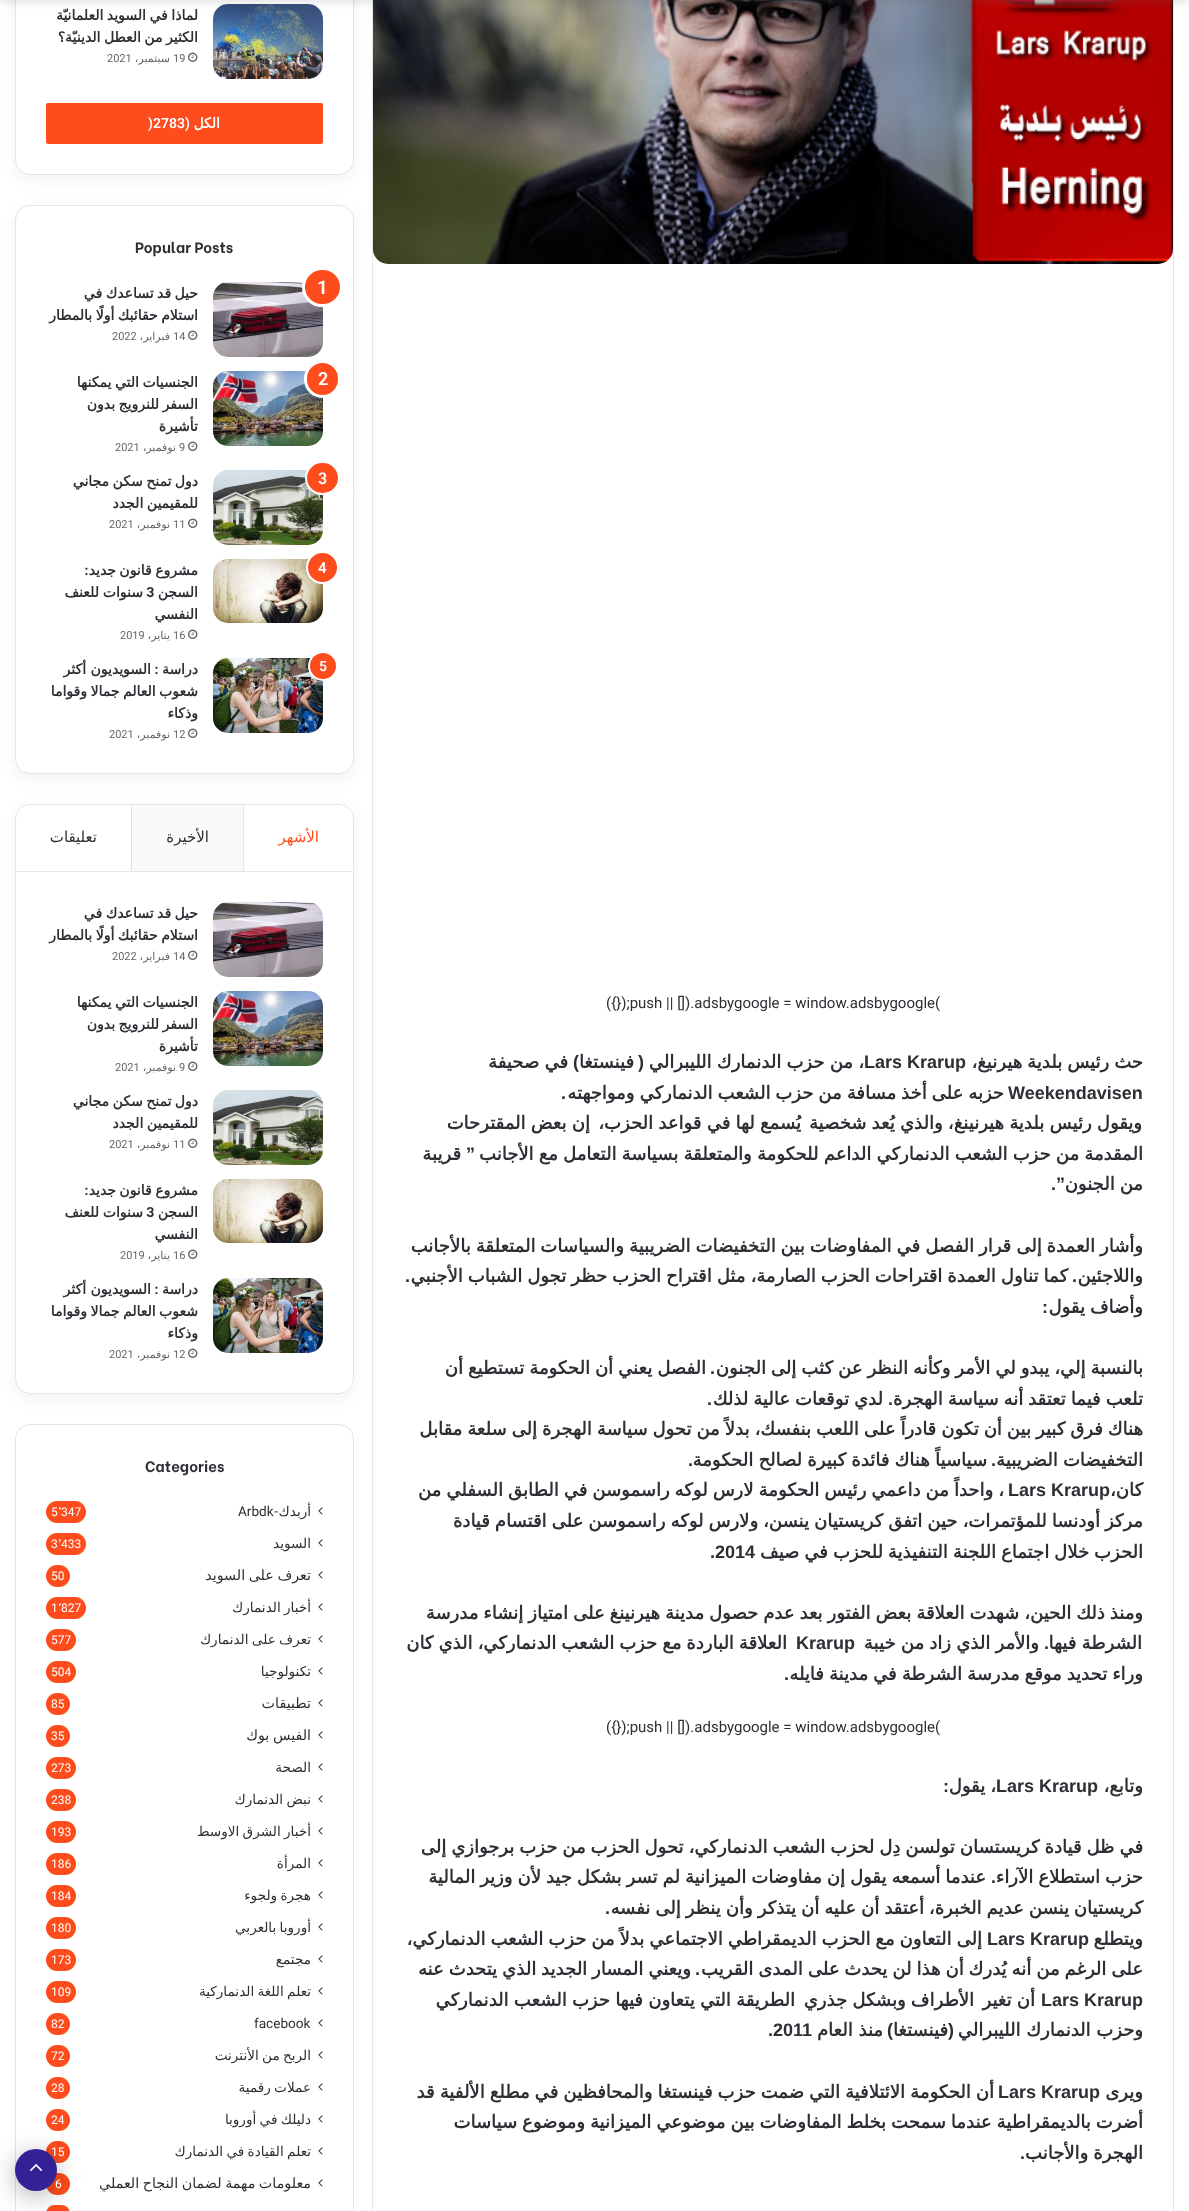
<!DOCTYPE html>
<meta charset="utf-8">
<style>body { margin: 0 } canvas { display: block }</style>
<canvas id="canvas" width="1189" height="2211"></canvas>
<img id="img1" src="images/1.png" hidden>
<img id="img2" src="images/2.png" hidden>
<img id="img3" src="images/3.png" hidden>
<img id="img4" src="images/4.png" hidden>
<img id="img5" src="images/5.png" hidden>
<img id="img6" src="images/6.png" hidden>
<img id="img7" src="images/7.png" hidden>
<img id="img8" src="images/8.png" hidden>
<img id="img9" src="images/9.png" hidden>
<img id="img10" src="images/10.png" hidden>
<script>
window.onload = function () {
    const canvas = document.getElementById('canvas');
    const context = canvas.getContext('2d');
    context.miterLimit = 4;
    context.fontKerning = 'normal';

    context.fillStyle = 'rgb(255, 255, 255)';
    context.fillRect(0, 0, 1189, 2211);
    context.strokeStyle = 'rgb(230, 230, 230)';
    context.strokeRect(372.5, -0.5, 801, 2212);
    context.drawImage(document.getElementById('img1'), 373, 0, 800, 264);
    context.fillStyle = 'rgba(0, 0, 0, 0.05)';
    context.filter = 'blur(7.5px)';
    context.beginPath();
    context.roundRect(15, -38, 339, 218, 15);
    context.fill();
    context.filter = 'none';
    context.fillStyle = 'rgb(255, 255, 255)';
    context.beginPath();
    context.roundRect(15.5, -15.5, 338, 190, 14.5);
    context.fill();
    context.strokeStyle = 'rgb(229, 229, 229)';
    context.stroke();
    context.drawImage(document.getElementById('img2'), 213, 4, 110, 75);
    context.fillStyle = 'rgba(99, 99, 99, 0.2)';
    context.filter = 'blur(4px)';
    context.beginPath();
    context.rect(0, -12, 1189, 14);
    context.fill();
    context.filter = 'none';
    context.drawImage(document.getElementById('img3'), 188, 52, 10, 10);
    context.fillStyle = 'rgb(254, 76, 28)';
    context.beginPath();
    context.roundRect(46, 103, 277, 41, 2);
    context.fill();
    context.fillStyle = 'rgba(0, 0, 0, 0.05)';
    context.filter = 'blur(7.5px)';
    context.beginPath();
    context.roundRect(15, 210, 339, 569, 15);
    context.fill();
    context.filter = 'none';
    context.fillStyle = 'rgb(255, 255, 255)';
    context.beginPath();
    context.roundRect(15.5, 205.5, 338, 568, 14.5);
    context.fill();
    context.stroke();
    context.drawImage(document.getElementById('img4'), 213, 282, 110, 75);
    context.fillStyle = 'rgb(254, 76, 28)';
    context.beginPath();
    context.roundRect(303.5, 268.5, 38, 37, 18.5);
    context.fill();
    context.strokeStyle = 'rgb(255, 255, 255)';
    context.lineWidth = 3;
    context.stroke();
    context.drawImage(document.getElementById('img3'), 188, 330, 10, 10);
    context.drawImage(document.getElementById('img5'), 213, 371, 110, 75);
    context.beginPath();
    context.roundRect(305.5, 361.5, 34, 35, 17);
    context.fill();
    context.stroke();
    context.drawImage(document.getElementById('img3'), 188, 441, 10, 10);
    context.drawImage(document.getElementById('img6'), 213, 470, 110, 75);
    context.beginPath();
    context.roundRect(306, 462, 33, 32, 16);
    context.fill();
    context.lineWidth = 2;
    context.stroke();
    context.drawImage(document.getElementById('img3'), 188, 518, 10, 10);
    context.drawImage(document.getElementById('img7'), 213, 559, 110, 64);
    context.beginPath();
    context.arc(322.5, 567.5, 15.5, 0, 2 * Math.PI);
    context.fill();
    context.stroke();
    context.drawImage(document.getElementById('img3'), 188, 629, 10, 10);
    context.drawImage(document.getElementById('img8'), 213, 658, 110, 75);
    context.drawImage(document.getElementById('img3'), 188, 728, 10, 10);
    context.beginPath();
    context.arc(323, 666, 14, 0, 2 * Math.PI);
    context.fill();
    context.stroke();
    context.fillStyle = 'rgba(0, 0, 0, 0.05)';
    context.filter = 'blur(7.5px)';
    context.beginPath();
    context.roundRect(15, 809, 339, 590, 15);
    context.fill();
    context.filter = 'none';
    context.fillStyle = 'rgb(255, 255, 255)';
    context.beginPath();
    context.roundRect(15.5, 804.5, 338, 589, 14.5);
    context.fill();
    context.strokeStyle = 'rgb(229, 229, 229)';
    context.lineWidth = 1;
    context.stroke();
    context.fillStyle = 'rgb(230, 230, 230)';
    context.fillRect(16, 871, 337, 1);
    context.beginPath();
    context.moveTo(243, 805);
    context.lineTo(244, 805);
    context.lineTo(244, 870);
    context.lineTo(243, 871);
    context.closePath();
    context.fill();
    context.fillStyle = 'rgb(250, 250, 250)';
    context.fillRect(131, 805, 112, 66);
    context.fillStyle = 'rgb(225, 225, 225)';
    context.beginPath();
    context.moveTo(131, 871);
    context.lineTo(131, 805);
    context.lineTo(132, 805);
    context.lineTo(132, 870);
    context.closePath();
    context.fill();
    context.drawImage(document.getElementById('img4'), 213, 902, 110, 75);
    context.drawImage(document.getElementById('img3'), 188, 950, 10, 10);
    context.drawImage(document.getElementById('img5'), 213, 991, 110, 75);
    context.drawImage(document.getElementById('img3'), 188, 1061, 10, 10);
    context.drawImage(document.getElementById('img6'), 213, 1090, 110, 75);
    context.drawImage(document.getElementById('img3'), 188, 1138, 10, 10);
    context.drawImage(document.getElementById('img7'), 213, 1179, 110, 64);
    context.drawImage(document.getElementById('img3'), 188, 1249, 10, 10);
    context.drawImage(document.getElementById('img8'), 213, 1278, 110, 75);
    context.drawImage(document.getElementById('img3'), 188, 1348, 10, 10);
    context.beginPath();
    context.roundRect(15.5, 1424.5, 338, 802, 14.5);
    context.stroke();
    context.drawImage(document.getElementById('img9'), 318, 1507, 5, 8);
    context.fillStyle = 'rgb(254, 76, 28)';
    context.beginPath();
    context.roundRect(46, 1501, 40, 22, 11);
    context.fill();
    context.drawImage(document.getElementById('img9'), 318, 1539, 5, 8);
    context.beginPath();
    context.roundRect(46, 1533, 40, 22, 11);
    context.fill();
    context.drawImage(document.getElementById('img9'), 318, 1571, 5, 8);
    context.beginPath();
    context.roundRect(46, 1565, 24, 22, 11);
    context.fill();
    context.drawImage(document.getElementById('img9'), 318, 1603, 5, 8);
    context.beginPath();
    context.roundRect(46, 1597, 40, 22, 11);
    context.fill();
    context.drawImage(document.getElementById('img9'), 318, 1635, 5, 8);
    context.beginPath();
    context.roundRect(46, 1629, 30, 22, 11);
    context.fill();
    context.drawImage(document.getElementById('img9'), 318, 1667, 5, 8);
    context.beginPath();
    context.roundRect(46, 1661, 30, 22, 11);
    context.fill();
    context.drawImage(document.getElementById('img9'), 318, 1699, 5, 8);
    context.beginPath();
    context.roundRect(46, 1693, 24, 22, 11);
    context.fill();
    context.drawImage(document.getElementById('img9'), 318, 1731, 5, 8);
    context.beginPath();
    context.roundRect(46, 1725, 24, 22, 11);
    context.fill();
    context.drawImage(document.getElementById('img9'), 318, 1763, 5, 8);
    context.beginPath();
    context.roundRect(46, 1757, 30, 22, 11);
    context.fill();
    context.drawImage(document.getElementById('img9'), 318, 1795, 5, 8);
    context.beginPath();
    context.roundRect(46, 1789, 30, 22, 11);
    context.fill();
    context.drawImage(document.getElementById('img9'), 318, 1827, 5, 8);
    context.beginPath();
    context.roundRect(46, 1821, 30, 22, 11);
    context.fill();
    context.drawImage(document.getElementById('img9'), 318, 1859, 5, 8);
    context.beginPath();
    context.roundRect(46, 1853, 30, 22, 11);
    context.fill();
    context.drawImage(document.getElementById('img9'), 318, 1891, 5, 8);
    context.beginPath();
    context.roundRect(46, 1885, 30, 22, 11);
    context.fill();
    context.drawImage(document.getElementById('img9'), 318, 1923, 5, 8);
    context.beginPath();
    context.roundRect(46, 1917, 30, 22, 11);
    context.fill();
    context.drawImage(document.getElementById('img9'), 318, 1955, 5, 8);
    context.beginPath();
    context.roundRect(46, 1949, 30, 22, 11);
    context.fill();
    context.drawImage(document.getElementById('img9'), 318, 1987, 5, 8);
    context.beginPath();
    context.roundRect(46, 1981, 30, 22, 11);
    context.fill();
    context.drawImage(document.getElementById('img9'), 318, 2019, 5, 8);
    context.beginPath();
    context.roundRect(46, 2013, 24, 22, 11);
    context.fill();
    context.drawImage(document.getElementById('img9'), 318, 2051, 5, 8);
    context.beginPath();
    context.roundRect(46, 2045, 24, 22, 11);
    context.fill();
    context.drawImage(document.getElementById('img9'), 318, 2083, 5, 8);
    context.beginPath();
    context.roundRect(46, 2077, 24, 22, 11);
    context.fill();
    context.drawImage(document.getElementById('img9'), 318, 2115, 5, 8);
    context.beginPath();
    context.roundRect(46, 2109, 24, 22, 11);
    context.fill();
    context.drawImage(document.getElementById('img9'), 318, 2147, 5, 8);
    context.beginPath();
    context.roundRect(46, 2141, 24, 22, 11);
    context.fill();
    context.drawImage(document.getElementById('img9'), 318, 2179, 5, 8);
    context.beginPath();
    context.roundRect(46, 2173, 24, 22, 11);
    context.fill();
    context.beginPath();
    context.roundRect(46, 2205, 24, 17, 11);
    context.fill();
    context.fillStyle = 'rgba(0, 0, 0, 0.3)';
    context.filter = 'blur(12.5px)';
    context.beginPath();
    context.roundRect(15, 2154, 42, 42, 21);
    context.fill();
    context.filter = 'none';
    context.font = '15px Roboto';
    context.fillStyle = 'rgb(44, 47, 52)';
    context.fillText('({});push || []).adsbygoogle = window.adsbygoogle(', 606, 1008);
    context.wordSpacing = '-0.75px';
    context.direction = 'rtl';
    context.font = 'bold 18px DejaVu Sans';
    context.fillText('حث رئيس بلدية هيرنيغ،', 1143, 1068);
    context.wordSpacing = '0px';
    context.direction = 'ltr';
    context.font = 'bold 18px Liberation Sans';
    context.fillText('Lars Krarup', 864, 1068);
    context.wordSpacing = '-0.5px';
    context.direction = 'rtl';
    context.font = 'bold 18px DejaVu Sans';
    context.fillText('، من حزب الدنمارك الليبرالي', 864, 1068);
    context.wordSpacing = '0px';
    context.font = 'bold 18px Liberation Sans';
    context.fillText('(', 644, 1068);
    context.font = 'bold 18px DejaVu Sans';
    context.fillText('فينستغا', 634, 1068);
    context.font = 'bold 18px Liberation Sans';
    context.fillText(')', 579, 1068);
    context.wordSpacing = '-0.5px';
    context.font = 'bold 18px DejaVu Sans';
    context.fillText('في صحيفة', 568, 1068);
    context.wordSpacing = '0px';
    context.direction = 'ltr';
    context.font = 'bold 18px Liberation Sans';
    context.fillText('Weekendavisen', 1008, 1099);
    context.wordSpacing = '-0.75px';
    context.direction = 'rtl';
    context.font = 'bold 18px DejaVu Sans';
    context.fillText('حزبه على أخذ مسافة من حزب الشعب الدنماركي ومواجهته', 1004, 1099);
    context.wordSpacing = '0px';
    context.font = 'bold 18px Liberation Sans';
    context.fillText('.', 566, 1099);
    context.wordSpacing = '-0.5px';
    context.font = 'bold 18px DejaVu Sans';
    context.fillText('ويقول رئيس بلدية هيرنينغ، والذي يُعد شخصية', 1142, 1129);
    context.fillText('يُسمع لها في قواعد الحزب،', 801, 1129);
    context.fillText('إن بعض المقترحات', 590, 1129);
    context.wordSpacing = '-0.6px';
    context.fillText('المقدمة من حزب الشعب الدنماركي الداعم للحكومة والمتعلقة بسياسة التعامل مع الأجانب', 1143, 1160);
    context.wordSpacing = '0px';
    context.font = 'bold 18px Liberation Sans';
    context.fillText('”', 475, 1160);
    context.font = 'bold 18px DejaVu Sans';
    context.fillText('قريبة', 461, 1160);
    context.wordSpacing = '-0.75px';
    context.fillText('من الجنون', 1143, 1190);
    context.wordSpacing = '0px';
    context.font = 'bold 18px Liberation Sans';
    context.fillText('”.', 1065, 1190);
    context.wordSpacing = '-0.75px';
    context.font = 'bold 18px DejaVu Sans';
    context.fillText('وأشار العمدة إلى قرار الفصل في المفاوضات بين التخفيضات الضريبية والسياسات المتعلقة بالأجانب', 1143, 1252);
    context.wordSpacing = '0px';
    context.fillText('واللاجئين', 1143, 1282);
    context.font = 'bold 18px Liberation Sans';
    context.fillText('.', 1077, 1282);
    context.wordSpacing = '-0.7px';
    context.font = 'bold 18px DejaVu Sans';
    context.fillText('كما تناول العمدة اقتراحات الحزب الصارمة، مثل اقتراح الحزب حظر تجول الشباب الأجنبي', 1068, 1282);
    context.wordSpacing = '0px';
    context.font = 'bold 18px Liberation Sans';
    context.fillText('.', 410, 1282);
    context.wordSpacing = '-0.75px';
    context.font = 'bold 18px DejaVu Sans';
    context.fillText('وأضاف يقول', 1143, 1313);
    context.wordSpacing = '0px';
    context.font = 'bold 18px Liberation Sans';
    context.fillText(':', 1048, 1313);
    context.wordSpacing = '-0.75px';
    context.font = 'bold 18px DejaVu Sans';
    context.fillText('بالنسبة إلي، يبدو لي الأمر وكأنه النظر عن كثب إلى الجنون', 1143, 1374);
    context.wordSpacing = '0px';
    context.font = 'bold 18px Liberation Sans';
    context.fillText('.', 715, 1374);
    context.wordSpacing = '-0.75px';
    context.font = 'bold 18px DejaVu Sans';
    context.fillText('الفصل يعني أن الحكومة تستطيع أن', 706, 1374);
    context.fillText('تلعب فيما تعتقد أنه سياسة الهجرة', 1143, 1405);
    context.wordSpacing = '0px';
    context.font = 'bold 18px Liberation Sans';
    context.fillText('.', 893, 1405);
    context.wordSpacing = '-0.75px';
    context.font = 'bold 18px DejaVu Sans';
    context.fillText('لدي توقعات عالية لذلك', 883, 1405);
    context.wordSpacing = '0px';
    context.font = 'bold 18px Liberation Sans';
    context.fillText('.', 712, 1405);
    context.wordSpacing = '-0.75px';
    context.font = 'bold 18px DejaVu Sans';
    context.fillText('هناك فرق كبير بين أن تكون قادراً على اللعب بنفسك، بدلاً من تحول سياسة الهجرة إلى سلعة مقابل', 1143, 1435);
    context.wordSpacing = '-0.5px';
    context.fillText('التخفيضات الضريبية', 1143, 1466);
    context.wordSpacing = '0px';
    context.font = 'bold 18px Liberation Sans';
    context.fillText('.', 996, 1466);
    context.wordSpacing = '-0.5px';
    context.font = 'bold 18px DejaVu Sans';
    context.fillText('سياسياً هناك فائدة كبيرة لصالح الحكومة', 987, 1466);
    context.wordSpacing = '0px';
    context.font = 'bold 18px Liberation Sans';
    context.fillText('.', 693, 1466);
    context.font = 'bold 18px DejaVu Sans';
    context.fillText('كان،', 1143, 1496);
    context.direction = 'ltr';
    context.font = 'bold 18px Liberation Sans';
    context.fillText('Lars Krarup', 1008, 1496);
    context.wordSpacing = '-0.7px';
    context.direction = 'rtl';
    context.font = 'bold 18px DejaVu Sans';
    context.fillText('، واحداً من داعمي رئيس الحكومة لارس لوكه راسموسن في الطابق السفلي من', 1004, 1496);
    context.wordSpacing = '-0.75px';
    context.fillText('مركز أودنسا للمؤتمرات، حين اتفق كريستيان ينسن، ولارس لوكه راسموسن على اقتسام قيادة', 1143, 1527);
    context.fillText('الحزب خلال اجتماع اللجنة التنفيذية للحزب في صيف', 1143, 1558);
    context.wordSpacing = '0px';
    context.direction = 'ltr';
    context.font = 'bold 18px Liberation Sans';
    context.fillText('.2014', 710, 1558);
    context.wordSpacing = '-0.75px';
    context.direction = 'rtl';
    context.font = 'bold 18px DejaVu Sans';
    context.fillText('ومنذ ذلك الحين، شهدت العلاقة بعض الفتور بعد عدم حصول مدينة هيرنينغ على امتياز إنشاء مدرسة', 1143, 1619);
    context.wordSpacing = '-0.5px';
    context.fillText('الشرطة فيها', 1142, 1649);
    context.wordSpacing = '0px';
    context.font = 'bold 18px Liberation Sans';
    context.fillText('.', 1049, 1649);
    context.wordSpacing = '-0.5px';
    context.font = 'bold 18px DejaVu Sans';
    context.fillText('والأمر الذي زاد من خيبة', 1039, 1649);
    context.wordSpacing = '0px';
    context.direction = 'ltr';
    context.font = 'bold 18px Liberation Sans';
    context.fillText('Krarup', 796, 1649);
    context.wordSpacing = '-0.75px';
    context.direction = 'rtl';
    context.font = 'bold 18px DejaVu Sans';
    context.fillText('العلاقة الباردة مع حزب الشعب الدنماركي، الذي كان', 787, 1649);
    context.fillText('وراء تحديد موقع مدرسة الشرطة في مدينة فايله', 1143, 1680);
    context.wordSpacing = '0px';
    context.font = 'bold 18px Liberation Sans';
    context.fillText('.', 789, 1680);
    context.direction = 'ltr';
    context.font = '15px Roboto';
    context.fillText('({});push || []).adsbygoogle = window.adsbygoogle(', 606, 1732);
    context.direction = 'rtl';
    context.font = 'bold 18px DejaVu Sans';
    context.fillText('وتابع،', 1143, 1792);
    context.direction = 'ltr';
    context.font = 'bold 18px Liberation Sans';
    context.fillText('Lars Krarup', 996, 1792);
    context.wordSpacing = '-0.75px';
    context.direction = 'rtl';
    context.font = 'bold 18px DejaVu Sans';
    context.fillText('، يقول', 996, 1792);
    context.wordSpacing = '0px';
    context.font = 'bold 18px Liberation Sans';
    context.fillText(':', 949, 1792);
    context.wordSpacing = '-0.75px';
    context.font = 'bold 18px DejaVu Sans';
    context.fillText('في ظل قيادة كريستسان تولسن دِل لحزب الشعب الدنماركي، تحول الحزب من حزب برجوازي إلى', 1143, 1853);
    context.fillText('حزب استطلاع الآراء', 1143, 1883);
    context.wordSpacing = '0px';
    context.font = 'bold 18px Liberation Sans';
    context.fillText('.', 996, 1883);
    context.wordSpacing = '-0.75px';
    context.font = 'bold 18px DejaVu Sans';
    context.fillText('عندما أسمعه يقول إن مفاوضات الميزانية لم تسر بشكل جيد لأن وزير المالية', 986, 1883);
    context.fillText('كريستيان ينسن عديم الخبرة، أعتقد أن عليه أن يتذكر وأن ينظر إلى نفسه', 1143, 1914);
    context.wordSpacing = '0px';
    context.font = 'bold 18px Liberation Sans';
    context.fillText('.', 610, 1914);
    context.font = 'bold 18px DejaVu Sans';
    context.fillText('ويتطلع', 1143, 1945);
    context.direction = 'ltr';
    context.font = 'bold 18px Liberation Sans';
    context.fillText('Lars Krarup', 987, 1945);
    context.wordSpacing = '-0.75px';
    context.direction = 'rtl';
    context.font = 'bold 18px DejaVu Sans';
    context.fillText('إلى التعاون مع الحزب الديمقراطي الاجتماعي بدلاً من حزب الشعب الدنماركي،', 982, 1945);
    context.fillText('على الرغم من أنه يُدرك أن هذا لن يحدث على المدى القريب', 1143, 1975);
    context.wordSpacing = '0px';
    context.font = 'bold 18px Liberation Sans';
    context.fillText('.', 700, 1975);
    context.wordSpacing = '-0.75px';
    context.font = 'bold 18px DejaVu Sans';
    context.fillText('ويعني المسار الجديد الذي يتحدث عنه', 691, 1975);
    context.wordSpacing = '0px';
    context.direction = 'ltr';
    context.font = 'bold 18px Liberation Sans';
    context.fillText('Lars Krarup', 1041, 2006);
    context.wordSpacing = '-0.5px';
    context.direction = 'rtl';
    context.font = 'bold 18px DejaVu Sans';
    context.fillText('أن تغير', 1035, 2006);
    context.fillText('الأطراف وبشكل جذري', 974, 2006);
    context.fillText('الطريقة التي يتعاون فيها حزب الشعب الدنماركي', 795, 2006);
    context.wordSpacing = '0px';
    context.fillText('وحزب الدنمارك الليبرالي', 1143, 2036);
    context.font = 'bold 18px Liberation Sans';
    context.fillText('(', 954, 2036);
    context.font = 'bold 18px DejaVu Sans';
    context.fillText('فينستغا', 948, 2036);
    context.font = 'bold 18px Liberation Sans';
    context.fillText(')', 893, 2036);
    context.font = 'bold 18px DejaVu Sans';
    context.fillText('منذ العام', 883, 2036);
    context.direction = 'ltr';
    context.font = 'bold 18px Liberation Sans';
    context.fillText('.2011', 768, 2036);
    context.direction = 'rtl';
    context.font = 'bold 18px DejaVu Sans';
    context.fillText('ويرى', 1143, 2098);
    context.direction = 'ltr';
    context.font = 'bold 18px Liberation Sans';
    context.fillText('Lars Krarup', 998, 2098);
    context.wordSpacing = '-0.7px';
    context.direction = 'rtl';
    context.font = 'bold 18px DejaVu Sans';
    context.fillText('أن الحكومة الائتلافية التي ضمت حزب فينستغا والمحافظين في مطلع الألفية قد', 994, 2098);
    context.wordSpacing = '-0.75px';
    context.fillText('أضرت بالديمقراطية عندما سمحت بخلط المفاوضات بين موضوعي الميزانية وموضوع سياسات', 1143, 2128);
    context.fillText('الهجرة والأجانب', 1143, 2159);
    context.wordSpacing = '0px';
    context.font = 'bold 18px Liberation Sans';
    context.fillText('.', 1025, 2159);
    context.wordSpacing = '-1px';
    context.font = 'bold 14px DejaVu Sans';
    context.fillText('لماذا في السويد العلمانيّة', 198, 20);
    context.fillText('الكثير من العطل الدينيّة؟', 198, 42);
    context.wordSpacing = '0px';
    context.direction = 'ltr';
    context.font = '11px Roboto';
    context.fillStyle = 'rgb(102, 102, 102)';
    context.fillText('19', 173, 62);
    context.direction = 'rtl';
    context.font = '11px DejaVu Sans';
    context.fillText('سبتمبر،', 170, 62);
    context.direction = 'ltr';
    context.font = '11px Roboto';
    context.fillText('2021', 107, 62);
    context.direction = 'rtl';
    context.font = 'bold 14px DejaVu Sans';
    context.fillStyle = 'rgb(255, 255, 255)';
    context.fillText('الكل', 220, 128);
    context.font = '600 14px Roboto';
    context.fillText('(', 190, 128);
    context.direction = 'ltr';
    context.fillText(')2783', 148, 128);
    context.font = 'bold 15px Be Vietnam';
    context.fillStyle = 'rgb(44, 47, 52)';
    context.fillText('Popular Posts', 135, 253);
    context.font = '600 19px Roboto';
    context.fillStyle = 'rgb(255, 255, 255)';
    context.fillText('1', 317, 294);
    context.wordSpacing = '-1px';
    context.direction = 'rtl';
    context.font = 'bold 14px DejaVu Sans';
    context.fillStyle = 'rgb(44, 47, 52)';
    context.fillText('حيل قد تساعدك في', 198, 298);
    context.fillText('استلام حقائبك أولًا بالمطار', 198, 320);
    context.wordSpacing = '0px';
    context.direction = 'ltr';
    context.font = '11px Roboto';
    context.fillStyle = 'rgb(102, 102, 102)';
    context.fillText('14', 173, 340);
    context.direction = 'rtl';
    context.font = '11px DejaVu Sans';
    context.fillText('فبراير،', 170, 340);
    context.direction = 'ltr';
    context.font = '11px Roboto';
    context.fillText('2022', 112, 340);
    context.font = '600 18px Roboto';
    context.fillStyle = 'rgb(255, 255, 255)';
    context.fillText('2', 318, 385);
    context.wordSpacing = '-1px';
    context.direction = 'rtl';
    context.font = 'bold 14px DejaVu Sans';
    context.fillStyle = 'rgb(44, 47, 52)';
    context.fillText('الجنسيات التي يمكنها', 198, 387);
    context.fillText('السفر للنرويج بدون', 198, 409);
    context.wordSpacing = '0px';
    context.fillText('تأشيرة', 198, 431);
    context.direction = 'ltr';
    context.font = '11px Roboto';
    context.fillStyle = 'rgb(102, 102, 102)';
    context.fillText('9', 179, 451);
    context.direction = 'rtl';
    context.font = '11px DejaVu Sans';
    context.fillText('نوفمبر،', 176, 451);
    context.direction = 'ltr';
    context.font = '11px Roboto';
    context.fillText('2021', 115, 451);
    context.font = '600 16px Roboto';
    context.fillStyle = 'rgb(255, 255, 255)';
    context.fillText('3', 318, 484);
    context.wordSpacing = '-1px';
    context.direction = 'rtl';
    context.font = 'bold 14px DejaVu Sans';
    context.fillStyle = 'rgb(44, 47, 52)';
    context.fillText('دول تمنح سكن مجاني', 198, 486);
    context.fillText('للمقيمين الجدد', 198, 508);
    context.wordSpacing = '0px';
    context.direction = 'ltr';
    context.font = '11px Roboto';
    context.fillStyle = 'rgb(102, 102, 102)';
    context.fillText('11', 173, 528);
    context.direction = 'rtl';
    context.font = '11px DejaVu Sans';
    context.fillText('نوفمبر،', 170, 528);
    context.direction = 'ltr';
    context.font = '11px Roboto';
    context.fillText('2021', 109, 528);
    context.font = '600 15px Roboto';
    context.fillStyle = 'rgb(255, 255, 255)';
    context.fillText('4', 318, 573);
    context.wordSpacing = '-1px';
    context.direction = 'rtl';
    context.font = 'bold 14px DejaVu Sans';
    context.fillStyle = 'rgb(44, 47, 52)';
    context.fillText('مشروع قانون جديد', 198, 575);
    context.wordSpacing = '0px';
    context.font = 'bold 14px Be Vietnam';
    context.fillText(':', 89, 575);
    context.font = 'bold 14px DejaVu Sans';
    context.fillText('السجن', 198, 597);
    context.direction = 'ltr';
    context.font = 'bold 14px Be Vietnam';
    context.fillText('3', 146, 597);
    context.wordSpacing = '-0.6px';
    context.direction = 'rtl';
    context.font = 'bold 14px DejaVu Sans';
    context.fillText('سنوات للعنف', 143, 597);
    context.wordSpacing = '0px';
    context.fillText('النفسي', 198, 619);
    context.direction = 'ltr';
    context.font = '11px Roboto';
    context.fillStyle = 'rgb(102, 102, 102)';
    context.fillText('16', 173, 639);
    context.direction = 'rtl';
    context.font = '11px DejaVu Sans';
    context.fillText('يناير،', 170, 639);
    context.direction = 'ltr';
    context.font = '11px Roboto';
    context.fillText('2019', 120, 639);
    context.direction = 'rtl';
    context.font = 'bold 14px DejaVu Sans';
    context.fillStyle = 'rgb(44, 47, 52)';
    context.fillText('دراسة', 198, 674);
    context.font = 'bold 14px Be Vietnam';
    context.fillText(':', 159, 674);
    context.font = 'bold 14px DejaVu Sans';
    context.fillText('السويديون أكثر', 151, 674);
    context.wordSpacing = '-1px';
    context.fillText('شعوب العالم جمالا وقواما', 198, 696);
    context.wordSpacing = '0px';
    context.fillText('وذكاء', 198, 718);
    context.direction = 'ltr';
    context.font = '11px Roboto';
    context.fillStyle = 'rgb(102, 102, 102)';
    context.fillText('12', 173, 738);
    context.direction = 'rtl';
    context.font = '11px DejaVu Sans';
    context.fillText('نوفمبر،', 170, 738);
    context.direction = 'ltr';
    context.font = '11px Roboto';
    context.fillText('2021', 109, 738);
    context.font = '600 14px Roboto';
    context.fillStyle = 'rgb(255, 255, 255)';
    context.fillText('5', 319, 671);
    context.direction = 'rtl';
    context.font = '15px DejaVu Sans';
    context.fillStyle = 'rgb(254, 76, 28)';
    context.fillText('الأشهر', 319, 842);
    context.fillStyle = 'rgb(44, 47, 52)';
    context.fillText('الأخيرة', 209, 842);
    context.fillText('تعليقات', 97, 842);
    context.wordSpacing = '-1px';
    context.font = 'bold 14px DejaVu Sans';
    context.fillText('حيل قد تساعدك في', 198, 918);
    context.fillText('استلام حقائبك أولًا بالمطار', 198, 940);
    context.wordSpacing = '0px';
    context.direction = 'ltr';
    context.font = '11px Roboto';
    context.fillStyle = 'rgb(102, 102, 102)';
    context.fillText('14', 173, 960);
    context.direction = 'rtl';
    context.font = '11px DejaVu Sans';
    context.fillText('فبراير،', 170, 960);
    context.direction = 'ltr';
    context.font = '11px Roboto';
    context.fillText('2022', 112, 960);
    context.wordSpacing = '-1px';
    context.direction = 'rtl';
    context.font = 'bold 14px DejaVu Sans';
    context.fillStyle = 'rgb(44, 47, 52)';
    context.fillText('الجنسيات التي يمكنها', 198, 1007);
    context.fillText('السفر للنرويج بدون', 198, 1029);
    context.wordSpacing = '0px';
    context.fillText('تأشيرة', 198, 1051);
    context.direction = 'ltr';
    context.font = '11px Roboto';
    context.fillStyle = 'rgb(102, 102, 102)';
    context.fillText('9', 179, 1071);
    context.direction = 'rtl';
    context.font = '11px DejaVu Sans';
    context.fillText('نوفمبر،', 176, 1071);
    context.direction = 'ltr';
    context.font = '11px Roboto';
    context.fillText('2021', 115, 1071);
    context.wordSpacing = '-1px';
    context.direction = 'rtl';
    context.font = 'bold 14px DejaVu Sans';
    context.fillStyle = 'rgb(44, 47, 52)';
    context.fillText('دول تمنح سكن مجاني', 198, 1106);
    context.fillText('للمقيمين الجدد', 198, 1128);
    context.wordSpacing = '0px';
    context.direction = 'ltr';
    context.font = '11px Roboto';
    context.fillStyle = 'rgb(102, 102, 102)';
    context.fillText('11', 173, 1148);
    context.direction = 'rtl';
    context.font = '11px DejaVu Sans';
    context.fillText('نوفمبر،', 170, 1148);
    context.direction = 'ltr';
    context.font = '11px Roboto';
    context.fillText('2021', 109, 1148);
    context.wordSpacing = '-1px';
    context.direction = 'rtl';
    context.font = 'bold 14px DejaVu Sans';
    context.fillStyle = 'rgb(44, 47, 52)';
    context.fillText('مشروع قانون جديد', 198, 1195);
    context.wordSpacing = '0px';
    context.font = 'bold 14px Be Vietnam';
    context.fillText(':', 89, 1195);
    context.font = 'bold 14px DejaVu Sans';
    context.fillText('السجن', 198, 1217);
    context.direction = 'ltr';
    context.font = 'bold 14px Be Vietnam';
    context.fillText('3', 146, 1217);
    context.wordSpacing = '-0.6px';
    context.direction = 'rtl';
    context.font = 'bold 14px DejaVu Sans';
    context.fillText('سنوات للعنف', 143, 1217);
    context.wordSpacing = '0px';
    context.fillText('النفسي', 198, 1239);
    context.direction = 'ltr';
    context.font = '11px Roboto';
    context.fillStyle = 'rgb(102, 102, 102)';
    context.fillText('16', 173, 1259);
    context.direction = 'rtl';
    context.font = '11px DejaVu Sans';
    context.fillText('يناير،', 170, 1259);
    context.direction = 'ltr';
    context.font = '11px Roboto';
    context.fillText('2019', 120, 1259);
    context.direction = 'rtl';
    context.font = 'bold 14px DejaVu Sans';
    context.fillStyle = 'rgb(44, 47, 52)';
    context.fillText('دراسة', 198, 1294);
    context.font = 'bold 14px Be Vietnam';
    context.fillText(':', 159, 1294);
    context.font = 'bold 14px DejaVu Sans';
    context.fillText('السويديون أكثر', 151, 1294);
    context.wordSpacing = '-1px';
    context.fillText('شعوب العالم جمالا وقواما', 198, 1316);
    context.wordSpacing = '0px';
    context.fillText('وذكاء', 198, 1338);
    context.direction = 'ltr';
    context.font = '11px Roboto';
    context.fillStyle = 'rgb(102, 102, 102)';
    context.fillText('12', 173, 1358);
    context.direction = 'rtl';
    context.font = '11px DejaVu Sans';
    context.fillText('نوفمبر،', 170, 1358);
    context.direction = 'ltr';
    context.font = '11px Roboto';
    context.fillText('2021', 109, 1358);
    context.font = 'bold 15px Be Vietnam';
    context.fillStyle = 'rgb(44, 47, 52)';
    context.fillText('Categories', 145, 1472);
    context.direction = 'rtl';
    context.font = '13.6px DejaVu Sans';
    context.fillText('أربدك', 311, 1516);
    context.direction = 'ltr';
    context.font = '13.6px Roboto';
    context.fillText('Arbdk', 238, 1516);
    context.direction = 'rtl';
    context.fillText('-', 278, 1516);
    context.direction = 'ltr';
    context.font = '12px Roboto';
    context.fillStyle = 'rgb(255, 255, 255)';
    context.fillText('347', 61, 1516);
    context.font = '12px DejaVu Sans';
    context.fillText('٬', 58, 1516);
    context.font = '12px Roboto';
    context.fillText('5', 51, 1516);
    context.direction = 'rtl';
    context.font = '13.6px DejaVu Sans';
    context.fillStyle = 'rgb(44, 47, 52)';
    context.fillText('السويد', 311, 1548);
    context.direction = 'ltr';
    context.font = '12px Roboto';
    context.fillStyle = 'rgb(255, 255, 255)';
    context.fillText('433', 61, 1548);
    context.font = '12px DejaVu Sans';
    context.fillText('٬', 58, 1548);
    context.font = '12px Roboto';
    context.fillText('3', 51, 1548);
    context.wordSpacing = '-1px';
    context.direction = 'rtl';
    context.font = '14.3px DejaVu Sans';
    context.fillStyle = 'rgb(44, 47, 52)';
    context.fillText('تعرف على السويد', 311, 1580);
    context.wordSpacing = '0px';
    context.direction = 'ltr';
    context.font = '12px Roboto';
    context.fillStyle = 'rgb(255, 255, 255)';
    context.fillText('50', 51, 1580);
    context.wordSpacing = '-1px';
    context.direction = 'rtl';
    context.font = '13.6px DejaVu Sans';
    context.fillStyle = 'rgb(44, 47, 52)';
    context.fillText('أخبار الدنمارك', 311, 1612);
    context.wordSpacing = '0px';
    context.direction = 'ltr';
    context.font = '12px Roboto';
    context.fillStyle = 'rgb(255, 255, 255)';
    context.fillText('827', 61, 1612);
    context.font = '12px DejaVu Sans';
    context.fillText('٬', 58, 1612);
    context.font = '12px Roboto';
    context.fillText('1', 51, 1612);
    context.wordSpacing = '-1px';
    context.direction = 'rtl';
    context.font = '13.6px DejaVu Sans';
    context.fillStyle = 'rgb(44, 47, 52)';
    context.fillText('تعرف على الدنمارك', 311, 1644);
    context.wordSpacing = '0px';
    context.direction = 'ltr';
    context.font = '12px Roboto';
    context.fillStyle = 'rgb(255, 255, 255)';
    context.fillText('577', 51, 1644);
    context.direction = 'rtl';
    context.font = '13.6px DejaVu Sans';
    context.fillStyle = 'rgb(44, 47, 52)';
    context.fillText('تكنولوجيا', 311, 1676);
    context.direction = 'ltr';
    context.font = '12px Roboto';
    context.fillStyle = 'rgb(255, 255, 255)';
    context.fillText('504', 51, 1676);
    context.direction = 'rtl';
    context.font = '14.3px DejaVu Sans';
    context.fillStyle = 'rgb(44, 47, 52)';
    context.fillText('تطبيقات', 311, 1708);
    context.direction = 'ltr';
    context.font = '12px Roboto';
    context.fillStyle = 'rgb(255, 255, 255)';
    context.fillText('85', 51, 1708);
    context.wordSpacing = '-1px';
    context.direction = 'rtl';
    context.font = '14.3px DejaVu Sans';
    context.fillStyle = 'rgb(44, 47, 52)';
    context.fillText('الفيس بوك', 311, 1740);
    context.wordSpacing = '0px';
    context.direction = 'ltr';
    context.font = '12px Roboto';
    context.fillStyle = 'rgb(255, 255, 255)';
    context.fillText('35', 51, 1740);
    context.direction = 'rtl';
    context.font = '13.6px DejaVu Sans';
    context.fillStyle = 'rgb(44, 47, 52)';
    context.fillText('الصحة', 311, 1772);
    context.direction = 'ltr';
    context.font = '12px Roboto';
    context.fillStyle = 'rgb(255, 255, 255)';
    context.fillText('273', 51, 1772);
    context.wordSpacing = '-1px';
    context.direction = 'rtl';
    context.font = '13.6px DejaVu Sans';
    context.fillStyle = 'rgb(44, 47, 52)';
    context.fillText('نبض الدنمارك', 311, 1804);
    context.wordSpacing = '0px';
    context.direction = 'ltr';
    context.font = '12px Roboto';
    context.fillStyle = 'rgb(255, 255, 255)';
    context.fillText('238', 51, 1804);
    context.wordSpacing = '-1px';
    context.direction = 'rtl';
    context.font = '13.6px DejaVu Sans';
    context.fillStyle = 'rgb(44, 47, 52)';
    context.fillText('أخبار الشرق الاوسط', 311, 1836);
    context.wordSpacing = '0px';
    context.direction = 'ltr';
    context.font = '12px Roboto';
    context.fillStyle = 'rgb(255, 255, 255)';
    context.fillText('193', 51, 1836);
    context.direction = 'rtl';
    context.font = '13.6px DejaVu Sans';
    context.fillStyle = 'rgb(44, 47, 52)';
    context.fillText('المرأة', 311, 1868);
    context.direction = 'ltr';
    context.font = '12px Roboto';
    context.fillStyle = 'rgb(255, 255, 255)';
    context.fillText('186', 51, 1868);
    context.wordSpacing = '-1px';
    context.direction = 'rtl';
    context.font = '13.6px DejaVu Sans';
    context.fillStyle = 'rgb(44, 47, 52)';
    context.fillText('هجرة ولجوء', 311, 1900);
    context.wordSpacing = '0px';
    context.direction = 'ltr';
    context.font = '12px Roboto';
    context.fillStyle = 'rgb(255, 255, 255)';
    context.fillText('184', 51, 1900);
    context.wordSpacing = '-1px';
    context.direction = 'rtl';
    context.font = '13.6px DejaVu Sans';
    context.fillStyle = 'rgb(44, 47, 52)';
    context.fillText('أوروبا بالعربي', 311, 1932);
    context.wordSpacing = '0px';
    context.direction = 'ltr';
    context.font = '12px Roboto';
    context.fillStyle = 'rgb(255, 255, 255)';
    context.fillText('180', 51, 1932);
    context.direction = 'rtl';
    context.font = '13.6px DejaVu Sans';
    context.fillStyle = 'rgb(44, 47, 52)';
    context.fillText('مجتمع', 311, 1964);
    context.direction = 'ltr';
    context.font = '12px Roboto';
    context.fillStyle = 'rgb(255, 255, 255)';
    context.fillText('173', 51, 1964);
    context.wordSpacing = '-1px';
    context.direction = 'rtl';
    context.font = '13.6px DejaVu Sans';
    context.fillStyle = 'rgb(44, 47, 52)';
    context.fillText('تعلم اللغة الدنماركية', 311, 1996);
    context.wordSpacing = '0px';
    context.direction = 'ltr';
    context.font = '12px Roboto';
    context.fillStyle = 'rgb(255, 255, 255)';
    context.fillText('109', 51, 1996);
    context.font = '13.6px Roboto';
    context.fillStyle = 'rgb(44, 47, 52)';
    context.fillText('facebook', 254, 2028);
    context.font = '12px Roboto';
    context.fillStyle = 'rgb(255, 255, 255)';
    context.fillText('82', 51, 2028);
    context.wordSpacing = '-1px';
    context.direction = 'rtl';
    context.font = '13.6px DejaVu Sans';
    context.fillStyle = 'rgb(44, 47, 52)';
    context.fillText('الربح من الأنترنت', 311, 2060);
    context.wordSpacing = '0px';
    context.direction = 'ltr';
    context.font = '12px Roboto';
    context.fillStyle = 'rgb(255, 255, 255)';
    context.fillText('72', 51, 2060);
    context.wordSpacing = '-1px';
    context.direction = 'rtl';
    context.font = '13.6px DejaVu Sans';
    context.fillStyle = 'rgb(44, 47, 52)';
    context.fillText('عملات رقمية', 311, 2092);
    context.wordSpacing = '0px';
    context.direction = 'ltr';
    context.font = '12px Roboto';
    context.fillStyle = 'rgb(255, 255, 255)';
    context.fillText('28', 51, 2092);
    context.wordSpacing = '-1px';
    context.direction = 'rtl';
    context.font = '13.6px DejaVu Sans';
    context.fillStyle = 'rgb(44, 47, 52)';
    context.fillText('دليلك في أوروبا', 311, 2124);
    context.wordSpacing = '0px';
    context.direction = 'ltr';
    context.font = '12px Roboto';
    context.fillStyle = 'rgb(255, 255, 255)';
    context.fillText('24', 51, 2124);
    context.wordSpacing = '-1px';
    context.direction = 'rtl';
    context.font = '13.6px DejaVu Sans';
    context.fillStyle = 'rgb(44, 47, 52)';
    context.fillText('تعلم القيادة في الدنمارك', 311, 2156);
    context.wordSpacing = '0px';
    context.direction = 'ltr';
    context.font = '12px Roboto';
    context.fillStyle = 'rgb(255, 255, 255)';
    context.fillText('15', 51, 2156);
    context.wordSpacing = '-1px';
    context.direction = 'rtl';
    context.font = '14.3px DejaVu Sans';
    context.fillStyle = 'rgb(44, 47, 52)';
    context.fillText('معلومات مهمة لضمان النجاح العملي', 311, 2188);
    context.wordSpacing = '0px';
    context.direction = 'ltr';
    context.font = '12px Roboto';
    context.fillStyle = 'rgb(255, 255, 255)';
    context.fillText('6', 55, 2188);
    context.fillStyle = 'rgb(51, 34, 149)';
    context.beginPath();
    context.arc(36, 2170, 21, 0, 2 * Math.PI);
    context.fill();
    context.drawImage(document.getElementById('img10'), 30, 2164, 13, 8);
};
</script>
